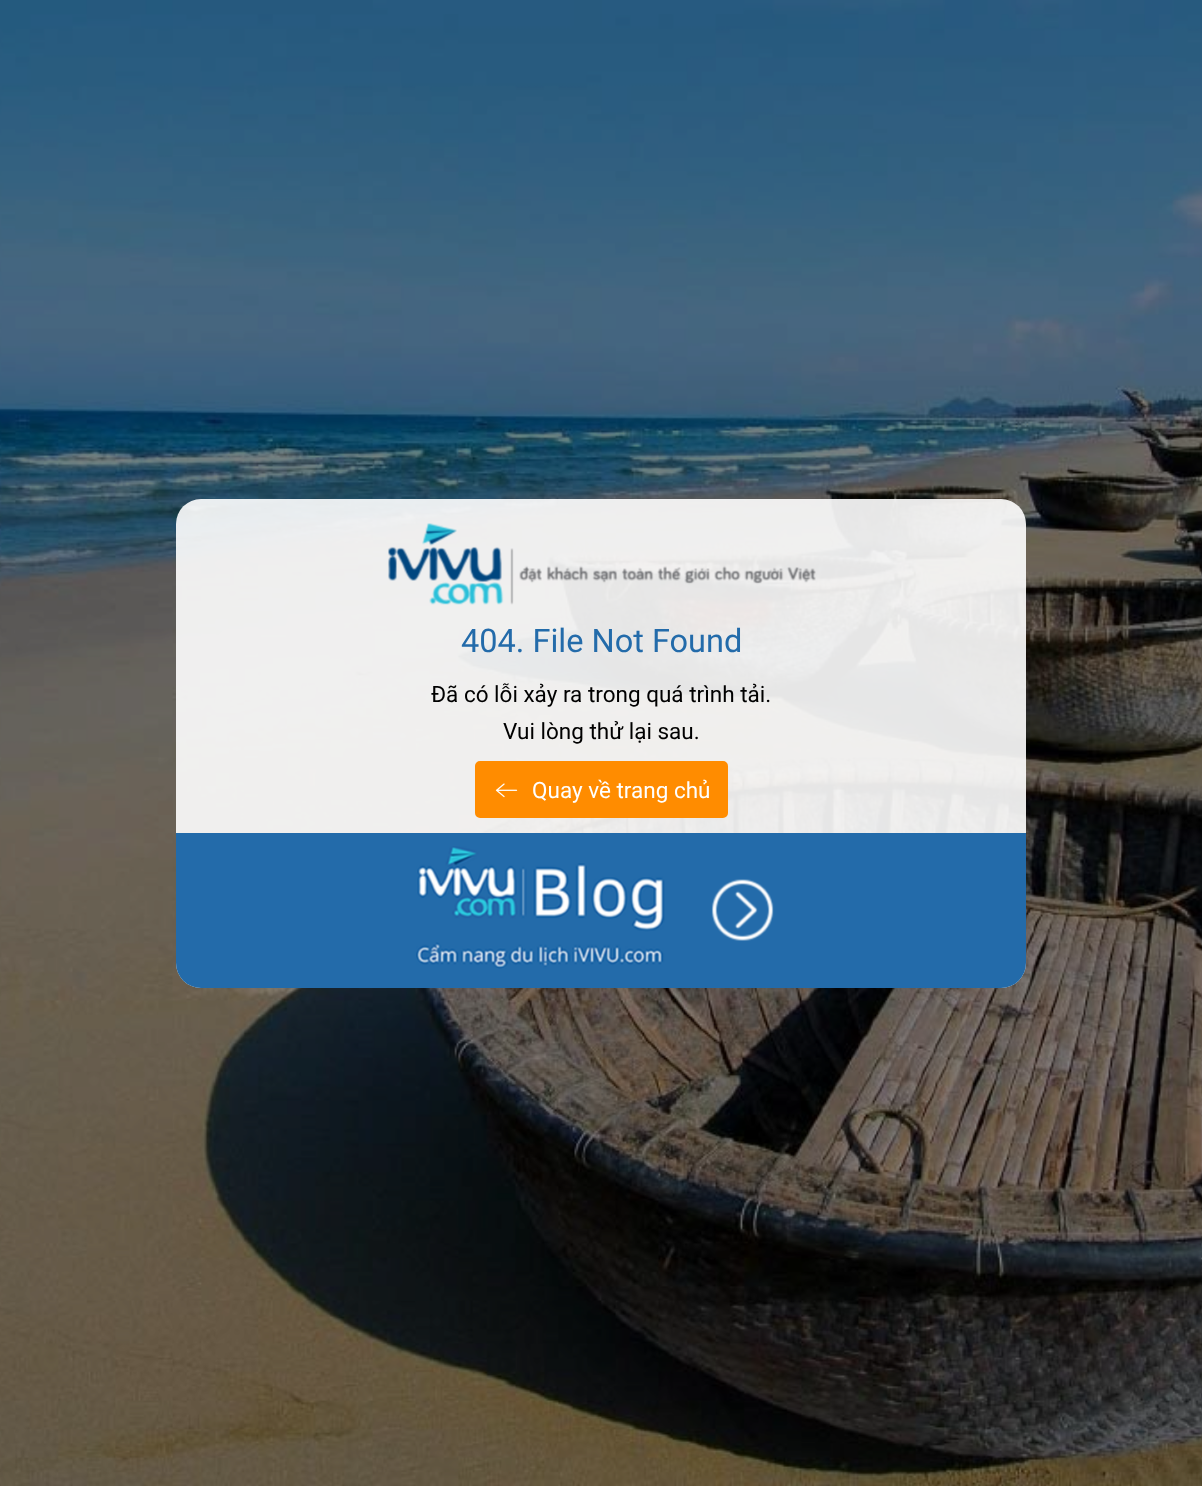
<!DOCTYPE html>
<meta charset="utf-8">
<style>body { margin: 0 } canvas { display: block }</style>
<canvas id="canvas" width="1202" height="1486"></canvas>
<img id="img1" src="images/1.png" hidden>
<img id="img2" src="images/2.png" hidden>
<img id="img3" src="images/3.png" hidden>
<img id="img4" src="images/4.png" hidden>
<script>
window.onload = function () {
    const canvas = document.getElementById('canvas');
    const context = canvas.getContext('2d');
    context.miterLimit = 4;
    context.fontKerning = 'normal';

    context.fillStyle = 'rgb(255, 255, 255)';
    context.fillRect(0, 0, 1202, 1486);
    context.drawImage(document.getElementById('img1'), 0, 0, 1202, 1486);
    context.fillStyle = 'rgba(255, 255, 255, 0.9)';
    context.beginPath();
    context.roundRect(176, 499, 850, 489, 25);
    context.fill();
    context.drawImage(document.getElementById('img2'), 388, 523, 428, 82);
    context.fillStyle = 'rgb(255, 140, 0)';
    context.beginPath();
    context.roundRect(476.5, 762.5, 250, 54, 3.5);
    context.fill();
    context.strokeStyle = 'rgb(255, 140, 0)';
    context.lineWidth = 3;
    context.stroke();
    context.drawImage(document.getElementById('img3'), 495, 783, 23, 15);
    context.fillStyle = 'rgb(35, 107, 170)';
    context.beginPath();
    context.roundRect(176, 833, 850, 155, [0, 0, 25, 25]);
    context.fill();
    context.drawImage(document.getElementById('img4'), 416, 846, 358, 123);
    context.font = '32.5px Roboto';
    context.fillText('404. File Not Found', 461, 652);
    context.font = '22.5px Roboto';
    context.fillStyle = 'rgb(0, 0, 0)';
    context.fillText('Đã có lỗi xảy ra trong quá trình tải.', 431, 702);
    context.fillText('Vui lòng thử lại sau.', 503, 739);
    context.fillStyle = 'rgb(255, 255, 255)';
    context.fillText('Quay về trang chủ', 532, 798);
};
</script>
